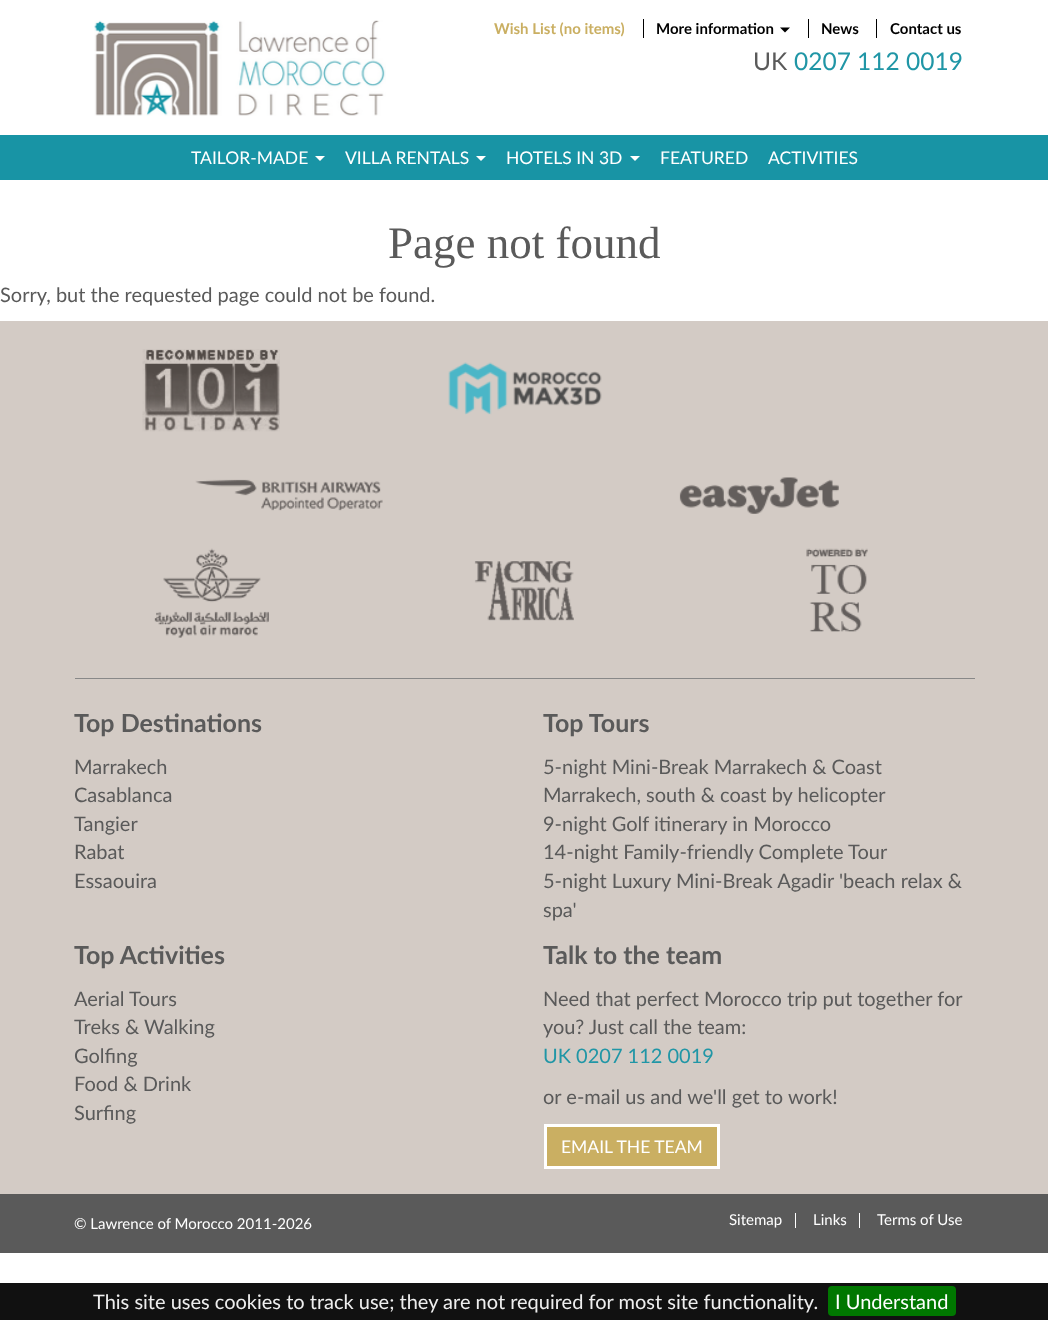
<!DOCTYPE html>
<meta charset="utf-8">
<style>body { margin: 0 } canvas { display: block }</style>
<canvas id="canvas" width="1048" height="1320"></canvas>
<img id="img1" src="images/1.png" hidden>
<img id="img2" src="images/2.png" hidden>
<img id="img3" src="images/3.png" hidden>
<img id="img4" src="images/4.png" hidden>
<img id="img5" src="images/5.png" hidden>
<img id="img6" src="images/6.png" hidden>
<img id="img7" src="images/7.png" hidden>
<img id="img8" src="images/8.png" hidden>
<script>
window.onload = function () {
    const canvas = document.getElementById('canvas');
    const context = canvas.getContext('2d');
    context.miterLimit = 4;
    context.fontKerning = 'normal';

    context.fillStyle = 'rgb(255, 255, 255)';
    context.fillRect(0, 0, 1048, 1320);
    context.drawImage(document.getElementById('img1'), 94, 20, 292, 96);
    context.fillStyle = 'rgb(0, 0, 0)';
    context.fillRect(643, 19, 1, 19);
    context.beginPath();
    context.moveTo(780, 27.5);
    context.lineTo(790, 27.5);
    context.lineTo(785, 32.5);
    context.closePath();
    context.fill();
    context.fillRect(808, 19, 1, 19);
    context.fillRect(876, 19, 1, 19);
    context.fillStyle = 'rgb(24, 148, 165)';
    context.fillRect(0, 135, 1048, 45);
    context.fillStyle = 'rgb(255, 255, 255)';
    context.beginPath();
    context.moveTo(315, 156);
    context.lineTo(325, 156);
    context.lineTo(320, 161);
    context.closePath();
    context.fill();
    context.beginPath();
    context.moveTo(476, 156);
    context.lineTo(486, 156);
    context.lineTo(481, 161);
    context.closePath();
    context.fill();
    context.beginPath();
    context.moveTo(630, 156);
    context.lineTo(640, 156);
    context.lineTo(635, 161);
    context.closePath();
    context.fill();
    context.fillStyle = 'rgb(211, 203, 197)';
    context.fillRect(0, 321, 1048, 873);
    context.drawImage(document.getElementById('img2'), 142, 349, 138, 83);
    context.drawImage(document.getElementById('img3'), 448, 362, 154, 53);
    context.drawImage(document.getElementById('img4'), 195, 479, 188, 32);
    context.drawImage(document.getElementById('img5'), 679, 477, 160, 37);
    context.drawImage(document.getElementById('img6'), 154, 548, 115, 90);
    context.drawImage(document.getElementById('img7'), 474, 561, 100, 60);
    context.drawImage(document.getElementById('img8'), 806, 548, 62, 84);
    context.fillStyle = 'rgb(136, 136, 136)';
    context.fillRect(75, 678, 900, 1);
    context.fillStyle = 'rgb(202, 175, 98)';
    context.beginPath();
    context.rect(545.5, 1125.5, 173, 42);
    context.fill();
    context.strokeStyle = 'rgb(255, 255, 255)';
    context.lineWidth = 3;
    context.stroke();
    context.fillStyle = 'rgb(90, 90, 90)';
    context.fillRect(0, 1194, 1048, 59);
    context.fillStyle = 'rgb(255, 255, 255)';
    context.fillRect(795, 1213, 1, 15);
    context.fillRect(859, 1213, 1, 15);
    context.fillStyle = 'rgb(17, 17, 17)';
    context.fillRect(0, 1283, 1048, 37);
    context.fillStyle = 'rgb(0, 119, 0)';
    context.beginPath();
    context.roundRect(828, 1286, 128, 30, 4);
    context.fill();
    context.font = 'bold 15px Lato';
    context.fillStyle = 'rgb(202, 175, 98)';
    context.fillText('Wish List (no items)', 494, 34);
    context.fillStyle = 'rgb(0, 0, 0)';
    context.fillText('More information', 656, 34);
    context.fillText('News', 821, 34);
    context.fillText('Contact us', 890, 34);
    context.font = '24.5px Lato';
    context.fillStyle = 'rgb(90, 90, 90)';
    context.fillText('UK', 753, 70);
    context.fillStyle = 'rgb(32, 150, 166)';
    context.fillText('0207 112 0019', 794, 70);
    context.font = '17.5px Lato';
    context.fillStyle = 'rgb(255, 255, 255)';
    context.fillText('TAILOR-MADE', 191, 164);
    context.fillText('VILLA RENTALS', 345, 164);
    context.fillText('HOTELS IN 3D', 506, 164);
    context.fillText('FEATURED', 660, 164);
    context.fillText('ACTIVITIES', 768, 164);
    context.font = '45px Liberation Serif';
    context.fillStyle = 'rgb(90, 90, 90)';
    context.fillText('Page not found', 388, 258);
    context.font = '20px Lato';
    context.fillText('Sorry, but the requested page could not be found.', 0, 302);
    context.font = 'bold 25px Lato';
    context.fillText('Top Destinations', 74, 732);
    context.font = '20px Lato';
    context.fillText('Marrakech', 74, 774);
    context.fillText('Casablanca', 74, 802);
    context.fillText('Tangier', 74, 831);
    context.fillText('Rabat', 74, 859);
    context.fillText('Essaouira', 74, 888);
    context.font = 'bold 25px Lato';
    context.fillText('Top Tours', 543, 732);
    context.font = '20px Lato';
    context.fillText('5-night Mini-Break Marrakech & Coast', 543, 774);
    context.fillText('Marrakech, south & coast by helicopter', 543, 802);
    context.fillText('9-night Golf itinerary in Morocco', 543, 831);
    context.fillText('14-night Family-friendly Complete Tour', 543, 859);
    context.fillText('5-night Luxury Mini-Break Agadir \'beach relax &', 543, 888);
    context.fillText('spa\'', 543, 917);
    context.font = 'bold 25px Lato';
    context.fillText('Top Activities', 74, 964);
    context.font = '20px Lato';
    context.fillText('Aerial Tours', 74, 1006);
    context.fillText('Treks & Walking', 74, 1034);
    context.fillText('Golfing', 74, 1063);
    context.fillText('Food & Drink', 74, 1091);
    context.fillText('Surfing', 74, 1120);
    context.font = 'bold 25px Lato';
    context.fillText('Talk to the team', 543, 964);
    context.font = '20px Lato';
    context.fillText('Need that perfect Morocco trip put together for', 543, 1006);
    context.fillText('you? Just call the team:', 543, 1034);
    context.fillStyle = 'rgb(32, 150, 166)';
    context.fillText('UK 0207 112 0019', 543, 1063);
    context.fillStyle = 'rgb(90, 90, 90)';
    context.fillText('or e-mail us and we\'ll get to work!', 543, 1104);
    context.font = '17.5px Lato';
    context.fillStyle = 'rgb(255, 255, 255)';
    context.fillText('EMAIL THE TEAM', 561, 1153);
    context.font = '15px Lato';
    context.fillText('© Lawrence of Morocco 2011-2026', 74, 1229);
    context.fillText('Sitemap', 729, 1225);
    context.fillText('Links', 813, 1225);
    context.fillText('Terms of Use', 877, 1225);
    context.font = '20px Lato';
    context.fillStyle = 'rgb(238, 238, 238)';
    context.fillText('This site uses cookies to track use; they are not required for most site functionality.', 93, 1309);
    context.fillStyle = 'rgb(255, 255, 255)';
    context.fillText('I Understand', 835, 1309);
};
</script>
